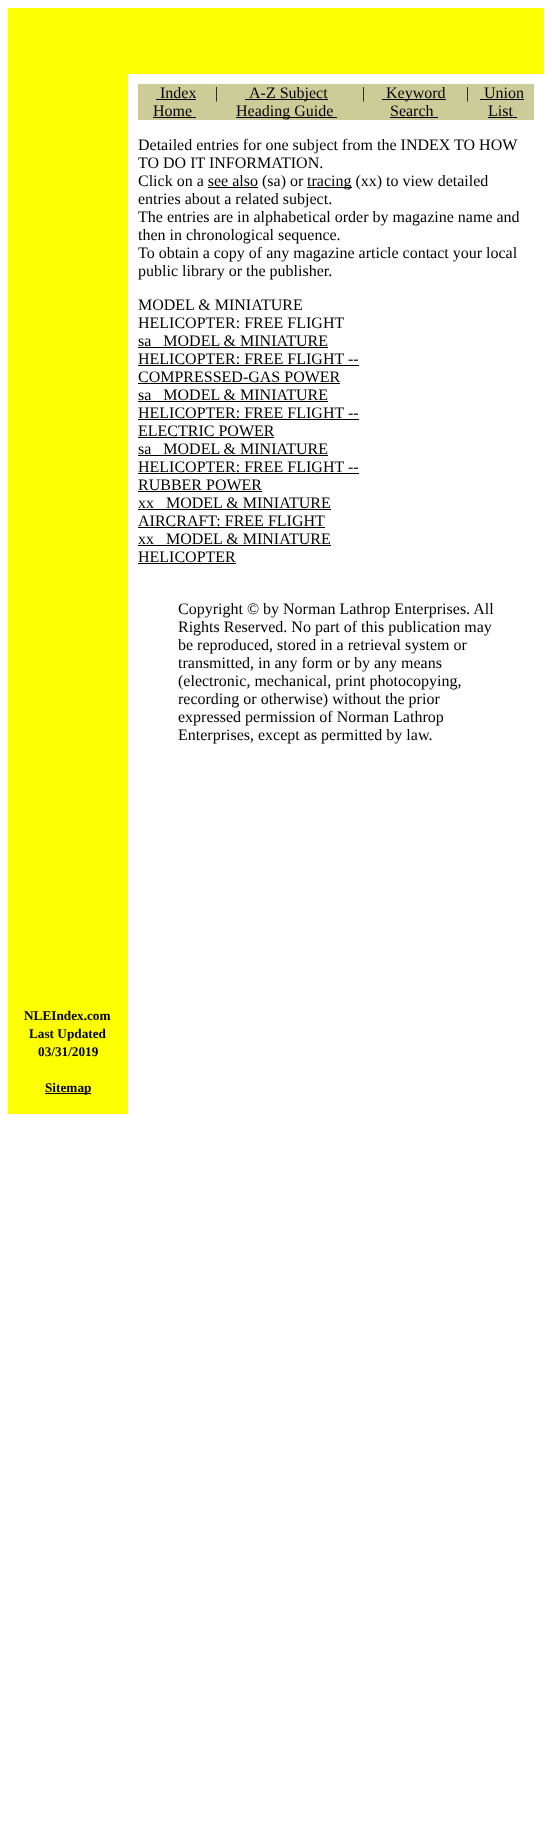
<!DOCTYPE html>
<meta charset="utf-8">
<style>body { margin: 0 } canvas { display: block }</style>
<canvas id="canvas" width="552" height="1837"></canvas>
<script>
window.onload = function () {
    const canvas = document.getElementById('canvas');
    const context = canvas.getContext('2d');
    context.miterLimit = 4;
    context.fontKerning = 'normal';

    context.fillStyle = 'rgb(255, 255, 255)';
    context.fillRect(0, 0, 552, 1837);
    context.fillStyle = 'rgb(254, 254, 2)';
    context.fillRect(8, 8, 536, 66);
    context.fillStyle = 'rgb(204, 204, 153)';
    context.fillRect(138, 84, 396, 36);
    context.fillStyle = 'rgb(0, 0, 0)';
    context.fillRect(156, 99, 40, 1);
    context.fillRect(153, 117, 43, 1);
    context.fillRect(245, 99, 83, 1);
    context.fillRect(236, 117, 101, 1);
    context.fillRect(382, 99, 64, 1);
    context.fillRect(390, 117, 48, 1);
    context.fillRect(480, 99, 44, 1);
    context.fillRect(488, 117, 29, 1);
    context.fillRect(307, 187, 45, 1);
    context.fillRect(208, 187, 50, 1);
    context.fillRect(138, 347, 190, 1);
    context.fillRect(138, 365, 221, 1);
    context.fillRect(138, 383, 202, 1);
    context.fillRect(138, 401, 190, 1);
    context.fillRect(138, 419, 221, 1);
    context.fillRect(138, 437, 136, 1);
    context.fillRect(138, 455, 190, 1);
    context.fillRect(138, 473, 221, 1);
    context.fillRect(138, 491, 124, 1);
    context.fillRect(138, 509, 193, 1);
    context.fillRect(138, 527, 187, 1);
    context.fillRect(138, 545, 193, 1);
    context.fillRect(138, 563, 98, 1);
    context.fillStyle = 'rgb(254, 254, 2)';
    context.fillRect(8, 74, 120, 1040);
    context.fillStyle = 'rgb(0, 0, 0)';
    context.fillRect(45, 1093, 46, 1);
    context.font = '16px Liberation Serif';
    context.fillText('Index', 160, 98);
    context.fillText('Home', 153, 116);
    context.fillText('|', 215, 98);
    context.fillText('A-Z Subject', 249, 98);
    context.fillText('Heading Guide', 236, 116);
    context.fillText('|', 362, 98);
    context.fillText('Keyword', 386, 98);
    context.fillText('Search', 390, 116);
    context.fillText('|', 466, 98);
    context.fillText('Union', 484, 98);
    context.fillText('List', 488, 116);
    context.fillText('Detailed entries for one subject from the INDEX TO HOW', 138, 150);
    context.fillText('TO DO IT INFORMATION.', 138, 168);
    context.fillText('Click on a see also (sa) or', 138, 186);
    context.fillText('tracing (xx) to view detailed', 307, 186);
    context.fillText('entries about a related subject.', 138, 204);
    context.fillText('The entries are in alphabetical order by magazine name and', 138, 222);
    context.fillText('then in chronological sequence.', 138, 240);
    context.fillText('To obtain a copy of any magazine article contact your local', 138, 258);
    context.fillText('public library or the publisher.', 138, 276);
    context.fillText('MODEL & MINIATURE', 138, 310);
    context.fillText('HELICOPTER: FREE FLIGHT', 138, 328);
    context.fillText('sa   MODEL & MINIATURE', 138, 346);
    context.fillText('HELICOPTER: FREE FLIGHT --', 138, 364);
    context.fillText('COMPRESSED-GAS POWER', 138, 382);
    context.fillText('sa   MODEL & MINIATURE', 138, 400);
    context.fillText('HELICOPTER: FREE FLIGHT --', 138, 418);
    context.fillText('ELECTRIC POWER', 138, 436);
    context.fillText('sa   MODEL & MINIATURE', 138, 454);
    context.fillText('HELICOPTER: FREE FLIGHT --', 138, 472);
    context.fillText('RUBBER POWER', 138, 490);
    context.fillText('xx   MODEL & MINIATURE', 138, 508);
    context.fillText('AIRCRAFT: FREE FLIGHT', 138, 526);
    context.fillText('xx   MODEL & MINIATURE', 138, 544);
    context.fillText('HELICOPTER', 138, 562);
    context.fillText('Copyright © by Norman Lathrop Enterprises. All', 178, 614);
    context.fillText('Rights Reserved. No part of this publication may', 178, 632);
    context.fillText('be reproduced, stored in a retrieval system or', 178, 650);
    context.fillText('transmitted, in any form or by any means', 178, 668);
    context.fillText('(electronic, mechanical, print photocopying,', 178, 686);
    context.fillText('recording or otherwise) without the prior', 178, 704);
    context.fillText('expressed permission of Norman Lathrop', 178, 722);
    context.fillText('Enterprises, except as permitted by law.', 178, 740);
    context.font = 'bold 13.25px Liberation Serif';
    context.fillText('NLEIndex.com', 24, 1020);
    context.fillText('Last Updated', 29, 1038);
    context.fillText('03/31/2019', 38, 1056);
    context.fillText('Sitemap', 45, 1092);
};
</script>
